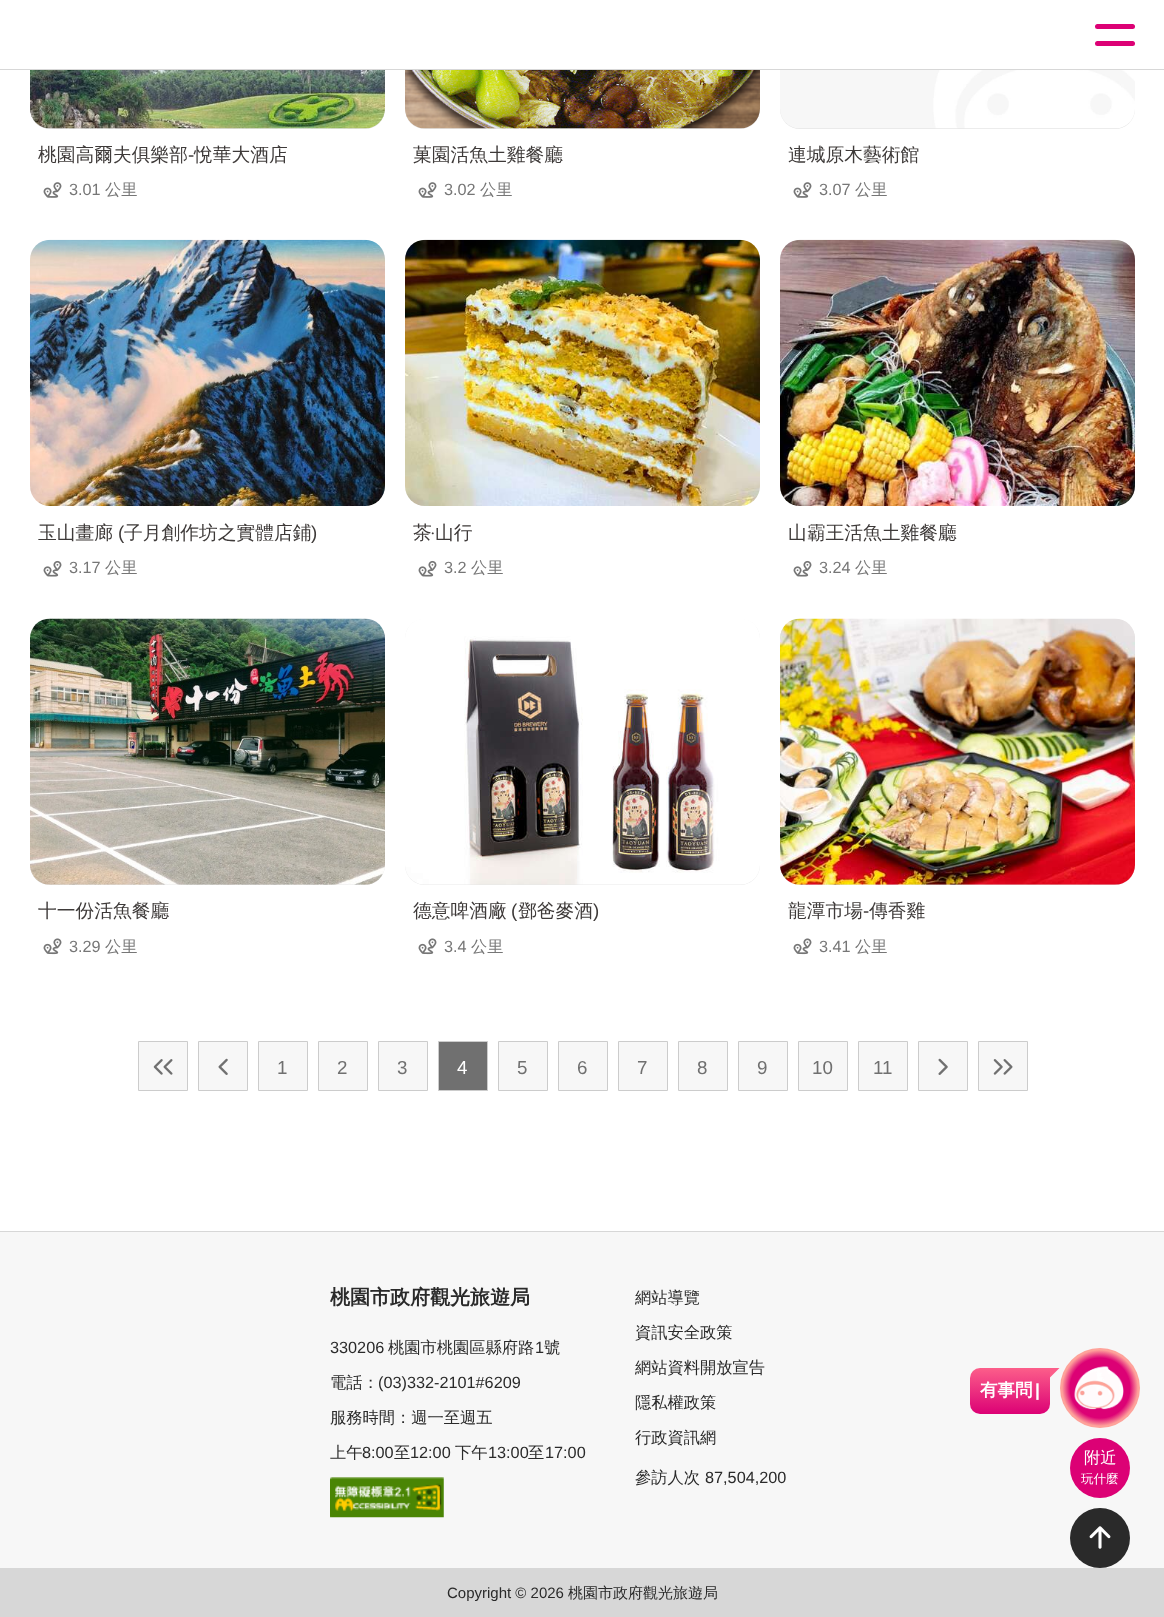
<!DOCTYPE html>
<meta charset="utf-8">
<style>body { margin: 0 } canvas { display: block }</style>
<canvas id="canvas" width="1164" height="1617"></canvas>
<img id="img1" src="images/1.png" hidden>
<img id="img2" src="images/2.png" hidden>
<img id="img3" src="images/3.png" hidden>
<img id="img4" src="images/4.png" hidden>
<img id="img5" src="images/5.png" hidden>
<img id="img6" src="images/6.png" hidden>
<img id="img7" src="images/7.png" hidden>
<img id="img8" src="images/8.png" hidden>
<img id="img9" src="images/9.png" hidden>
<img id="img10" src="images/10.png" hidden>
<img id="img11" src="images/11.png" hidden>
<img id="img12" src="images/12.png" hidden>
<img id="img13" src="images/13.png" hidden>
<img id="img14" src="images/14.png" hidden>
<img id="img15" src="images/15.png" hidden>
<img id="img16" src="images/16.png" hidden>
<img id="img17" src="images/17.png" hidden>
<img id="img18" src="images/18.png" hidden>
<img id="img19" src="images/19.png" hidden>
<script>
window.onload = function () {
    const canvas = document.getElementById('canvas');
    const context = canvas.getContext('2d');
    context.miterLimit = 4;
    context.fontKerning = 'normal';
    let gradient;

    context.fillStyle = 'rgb(255, 255, 255)';
    context.fillRect(0, 0, 1164, 1617);
    context.fillStyle = 'rgb(230, 230, 230)';
    context.beginPath();
    context.roundRect(30, -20, 355, 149, 20);
    context.fill();
    context.beginPath();
    context.roundRect(405, -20, 355, 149, 20);
    context.fill();
    context.beginPath();
    context.roundRect(780, -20, 355, 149, 20);
    context.fill();
    context.fillStyle = 'rgb(255, 255, 255)';
    context.fillRect(30, 0, 1105, 69);
    context.fillStyle = 'rgb(220, 1, 117)';
    context.beginPath();
    context.roundRect(1095, 24, 40, 5, 2.5);
    context.fill();
    context.beginPath();
    context.roundRect(1095, 41, 40, 5, 2.5);
    context.fill();
    context.fillStyle = 'rgb(215, 215, 215)';
    context.fillRect(0, 69, 1164, 1);
    context.drawImage(document.getElementById('img1'), 30, 70, 355, 59);
    context.drawImage(document.getElementById('img2'), 43, 182, 19, 16);
    context.drawImage(document.getElementById('img3'), 405, 70, 355, 59);
    context.drawImage(document.getElementById('img2'), 418, 182, 19, 16);
    context.drawImage(document.getElementById('img4'), 780, 70, 355, 59);
    context.drawImage(document.getElementById('img2'), 793, 182, 19, 16);
    context.drawImage(document.getElementById('img5'), 30, 239, 355, 267);
    context.drawImage(document.getElementById('img6'), 43, 560, 19, 17);
    context.drawImage(document.getElementById('img7'), 405, 239, 355, 267);
    context.drawImage(document.getElementById('img6'), 418, 560, 19, 17);
    context.drawImage(document.getElementById('img8'), 780, 239, 355, 267);
    context.drawImage(document.getElementById('img6'), 793, 560, 19, 17);
    context.fillStyle = 'rgb(230, 230, 230)';
    context.beginPath();
    context.roundRect(30, 619, 355, 266, 20);
    context.fill();
    context.drawImage(document.getElementById('img9'), 30, 618, 355, 267);
    context.drawImage(document.getElementById('img10'), 43, 938, 19, 17);
    context.beginPath();
    context.roundRect(405, 619, 355, 266, 20);
    context.fill();
    context.drawImage(document.getElementById('img11'), 405, 619, 355, 266);
    context.drawImage(document.getElementById('img10'), 418, 938, 19, 17);
    context.beginPath();
    context.roundRect(780, 619, 355, 266, 20);
    context.fill();
    context.drawImage(document.getElementById('img12'), 780, 618, 355, 267);
    context.drawImage(document.getElementById('img10'), 793, 938, 19, 17);
    context.fillStyle = 'rgb(247, 247, 247)';
    context.beginPath();
    context.rect(138.5, 1041.5, 49, 49);
    context.fill();
    context.strokeStyle = 'rgb(204, 204, 204)';
    context.stroke();
    context.drawImage(document.getElementById('img13'), 153, 1059, 20, 16);
    context.beginPath();
    context.rect(198.5, 1041.5, 49, 49);
    context.fill();
    context.stroke();
    context.drawImage(document.getElementById('img14'), 218, 1058, 10, 17);
    context.beginPath();
    context.rect(258.5, 1041.5, 49, 49);
    context.fill();
    context.stroke();
    context.beginPath();
    context.rect(318.5, 1041.5, 49, 49);
    context.fill();
    context.stroke();
    context.beginPath();
    context.rect(378.5, 1041.5, 49, 49);
    context.fill();
    context.stroke();
    context.fillStyle = 'rgb(112, 112, 112)';
    context.beginPath();
    context.rect(438.5, 1041.5, 49, 49);
    context.fill();
    context.stroke();
    context.fillStyle = 'rgb(247, 247, 247)';
    context.beginPath();
    context.rect(498.5, 1041.5, 49, 49);
    context.fill();
    context.stroke();
    context.beginPath();
    context.rect(558.5, 1041.5, 49, 49);
    context.fill();
    context.stroke();
    context.beginPath();
    context.rect(618.5, 1041.5, 49, 49);
    context.fill();
    context.stroke();
    context.beginPath();
    context.rect(678.5, 1041.5, 49, 49);
    context.fill();
    context.stroke();
    context.beginPath();
    context.rect(738.5, 1041.5, 49, 49);
    context.fill();
    context.stroke();
    context.beginPath();
    context.rect(798.5, 1041.5, 49, 49);
    context.fill();
    context.stroke();
    context.beginPath();
    context.rect(858.5, 1041.5, 49, 49);
    context.fill();
    context.stroke();
    context.beginPath();
    context.rect(918.5, 1041.5, 49, 49);
    context.fill();
    context.stroke();
    context.drawImage(document.getElementById('img15'), 938, 1058, 10, 17);
    context.beginPath();
    context.rect(978.5, 1041.5, 49, 49);
    context.fill();
    context.stroke();
    context.drawImage(document.getElementById('img16'), 993, 1059, 20, 16);
    context.fillRect(0, 1232, 1164, 336);
    context.fillStyle = 'rgb(215, 215, 215)';
    context.fillRect(0, 1231, 1164, 1);
    context.drawImage(document.getElementById('img17'), 330, 1477, 114, 41);
    context.fillRect(0, 1568, 1164, 49);
    context.save();
    context.beginPath();
    context.rect(1050, 1368, 10, 10);
    context.clip();
    context.fillStyle = 'rgb(252, 94, 138)';
    context.beginPath();
    context.moveTo(1060, 1367.5);
    context.lineTo(1050, 1367.5);
    context.lineTo(1050, 1377.5);
    context.closePath();
    context.fill();
    context.restore();
    gradient = context.createLinearGradient(1010, 1368, 1010, 1414);
    gradient.addColorStop(0, 'rgb(252, 94, 138)');
    gradient.addColorStop(1, 'rgb(220, 1, 117)');
    context.fillStyle = gradient;
    context.beginPath();
    context.roundRect(970, 1368, 80, 46, [10, 0, 10, 10]);
    context.fill();
    gradient = context.createRadialGradient(1100, 1388, 0, 1100, 1388, 40);
    gradient.addColorStop(0.75, 'rgb(220, 1, 117)');
    gradient.addColorStop(0.95, 'rgb(254, 162, 154)');
    context.fillStyle = gradient;
    context.beginPath();
    context.arc(1100, 1388, 40, 0, 2 * Math.PI);
    context.fill();
    context.drawImage(document.getElementById('img18'), 1074, 1366, 50, 44);
    context.fillStyle = 'rgb(220, 1, 117)';
    context.beginPath();
    context.arc(1100, 1468, 30, 0, 2 * Math.PI);
    context.fill();
    context.fillStyle = 'rgb(42, 42, 42)';
    context.beginPath();
    context.arc(1100, 1538, 30, 0, 2 * Math.PI);
    context.fill();
    context.drawImage(document.getElementById('img19'), 1089, 1526, 22, 23);
    context.font = '500 18.75px WenQuanYi Zen Hei';
    context.fillStyle = 'rgb(62, 58, 57)';
    context.fillText('桃園高爾夫俱樂部', 38, 161);
    context.font = '18.75px Liberation Sans';
    context.fillText('-', 188, 161);
    context.font = '500 18.75px WenQuanYi Zen Hei';
    context.fillText('悅華大酒店', 194, 161);
    context.font = '16.25px Liberation Sans';
    context.fillStyle = 'rgb(118, 118, 118)';
    context.fillText('3.01', 69, 195);
    context.font = '500 16.25px WenQuanYi Zen Hei';
    context.fillText('公里', 105, 195);
    context.font = '500 18.75px WenQuanYi Zen Hei';
    context.fillStyle = 'rgb(62, 58, 57)';
    context.fillText('菓園活魚土雞餐廳', 413, 161);
    context.font = '16.25px Liberation Sans';
    context.fillStyle = 'rgb(118, 118, 118)';
    context.fillText('3.02', 444, 195);
    context.font = '500 16.25px WenQuanYi Zen Hei';
    context.fillText('公里', 480, 195);
    context.font = '500 18.75px WenQuanYi Zen Hei';
    context.fillStyle = 'rgb(62, 58, 57)';
    context.fillText('連城原木藝術館', 788, 161);
    context.font = '16.25px Liberation Sans';
    context.fillStyle = 'rgb(118, 118, 118)';
    context.fillText('3.07', 819, 195);
    context.font = '500 16.25px WenQuanYi Zen Hei';
    context.fillText('公里', 855, 195);
    context.font = '500 18.75px WenQuanYi Zen Hei';
    context.fillStyle = 'rgb(62, 58, 57)';
    context.fillText('玉山畫廊', 38, 539);
    context.font = '18.75px Liberation Sans';
    context.fillText('(', 118, 539);
    context.font = '500 18.75px WenQuanYi Zen Hei';
    context.fillText('子月創作坊之實體店鋪', 124, 539);
    context.font = '18.75px Liberation Sans';
    context.fillText(')', 311, 539);
    context.font = '16.25px Liberation Sans';
    context.fillStyle = 'rgb(118, 118, 118)';
    context.fillText('3.17', 69, 573);
    context.font = '500 16.25px WenQuanYi Zen Hei';
    context.fillText('公里', 105, 573);
    context.font = '500 18.75px WenQuanYi Zen Hei';
    context.fillStyle = 'rgb(62, 58, 57)';
    context.fillText('茶', 413, 539);
    context.font = '18.75px Roboto';
    context.fillText('‧', 431, 539);
    context.font = '500 18.75px WenQuanYi Zen Hei';
    context.fillText('山行', 435, 539);
    context.font = '16.25px Liberation Sans';
    context.fillStyle = 'rgb(118, 118, 118)';
    context.fillText('3.2', 444, 573);
    context.font = '500 16.25px WenQuanYi Zen Hei';
    context.fillText('公里', 471, 573);
    context.font = '500 18.75px WenQuanYi Zen Hei';
    context.fillStyle = 'rgb(62, 58, 57)';
    context.fillText('山霸王活魚土雞餐廳', 788, 539);
    context.font = '16.25px Liberation Sans';
    context.fillStyle = 'rgb(118, 118, 118)';
    context.fillText('3.24', 819, 573);
    context.font = '500 16.25px WenQuanYi Zen Hei';
    context.fillText('公里', 855, 573);
    context.font = '500 18.75px WenQuanYi Zen Hei';
    context.fillStyle = 'rgb(62, 58, 57)';
    context.fillText('十一份活魚餐廳', 38, 917);
    context.font = '16.25px Liberation Sans';
    context.fillStyle = 'rgb(118, 118, 118)';
    context.fillText('3.29', 69, 952);
    context.font = '500 16.25px WenQuanYi Zen Hei';
    context.fillText('公里', 105, 952);
    context.font = '500 18.75px WenQuanYi Zen Hei';
    context.fillStyle = 'rgb(62, 58, 57)';
    context.fillText('德意啤酒廠', 413, 917);
    context.font = '18.75px Liberation Sans';
    context.fillText('(', 511, 917);
    context.font = '500 18.75px WenQuanYi Zen Hei';
    context.fillText('鄧爸麥酒', 518, 917);
    context.font = '18.75px Liberation Sans';
    context.fillText(')', 593, 917);
    context.font = '16.25px Liberation Sans';
    context.fillStyle = 'rgb(118, 118, 118)';
    context.fillText('3.4', 444, 952);
    context.font = '500 16.25px WenQuanYi Zen Hei';
    context.fillText('公里', 471, 952);
    context.font = '500 18.75px WenQuanYi Zen Hei';
    context.fillStyle = 'rgb(62, 58, 57)';
    context.fillText('龍潭市場', 788, 917);
    context.font = '18.75px Liberation Sans';
    context.fillText('-', 863, 917);
    context.font = '500 18.75px WenQuanYi Zen Hei';
    context.fillText('傳香雞', 869, 917);
    context.font = '16.25px Liberation Sans';
    context.fillStyle = 'rgb(118, 118, 118)';
    context.fillText('3.41', 819, 952);
    context.font = '500 16.25px WenQuanYi Zen Hei';
    context.fillText('公里', 855, 952);
    context.font = '18.75px Liberation Sans';
    context.fillStyle = 'rgb(112, 112, 112)';
    context.fillText('1', 277, 1074);
    context.fillText('2', 337, 1074);
    context.fillText('3', 397, 1074);
    context.fillStyle = 'rgb(255, 255, 255)';
    context.fillText('4', 457, 1074);
    context.fillStyle = 'rgb(112, 112, 112)';
    context.fillText('5', 517, 1074);
    context.fillText('6', 577, 1074);
    context.fillText('7', 637, 1074);
    context.fillText('8', 697, 1074);
    context.fillText('9', 757, 1074);
    context.fillText('10', 812, 1074);
    context.fillText('11', 873, 1074);
    context.font = 'bold 20px WenQuanYi Zen Hei';
    context.fillStyle = 'rgb(42, 42, 42)';
    context.fillText('桃園市政府觀光旅遊局', 330, 1304);
    context.font = '16.25px Liberation Sans';
    context.fillText('330206', 330, 1353);
    context.font = '500 16.25px WenQuanYi Zen Hei';
    context.fillText('桃園市桃園區縣府路', 388, 1353);
    context.font = '16.25px Liberation Sans';
    context.fillText('1', 535, 1353);
    context.font = '500 16.25px WenQuanYi Zen Hei';
    context.fillText('號', 544, 1353);
    context.fillText('電話：', 330, 1388);
    context.font = '16.25px Liberation Sans';
    context.fillText('(03)332-2101#6209', 378, 1388);
    context.font = '500 16.25px WenQuanYi Zen Hei';
    context.fillText('服務時間：週一至週五', 330, 1423);
    context.fillText('上午', 330, 1458);
    context.font = '16.25px Liberation Sans';
    context.fillText('8:00', 362, 1458);
    context.font = '500 16.25px WenQuanYi Zen Hei';
    context.fillText('至', 394, 1458);
    context.font = '16.25px Liberation Sans';
    context.fillText('12:00', 410, 1458);
    context.font = '500 16.25px WenQuanYi Zen Hei';
    context.fillText('下午', 455, 1458);
    context.font = '16.25px Liberation Sans';
    context.fillText('13:00', 488, 1458);
    context.font = '500 16.25px WenQuanYi Zen Hei';
    context.fillText('至', 528, 1458);
    context.font = '16.25px Liberation Sans';
    context.fillText('17:00', 545, 1458);
    context.font = '500 16.25px WenQuanYi Zen Hei';
    context.fillText('網站導覽', 635, 1303);
    context.fillText('資訊安全政策', 635, 1338);
    context.fillText('網站資料開放宣告', 635, 1373);
    context.fillText('隱私權政策', 635, 1408);
    context.fillText('行政資訊網', 635, 1443);
    context.fillText('參訪人次', 635, 1483);
    context.font = '16.25px Liberation Sans';
    context.fillText('87,504,200', 705, 1483);
    context.font = '15px Liberation Sans';
    context.fillText('Copyright © 2026', 447, 1598);
    context.font = '500 15px WenQuanYi Zen Hei';
    context.fillText('桃園市政府觀光旅遊局', 568, 1598);
    context.font = 'bold 17.5px WenQuanYi Zen Hei';
    context.fillStyle = 'rgb(255, 255, 255)';
    context.fillText('有事問', 980, 1396);
    context.font = 'bold 17.5px Liberation Sans';
    context.fillText('|', 1035, 1396);
    context.font = '500 16.25px WenQuanYi Zen Hei';
    context.fillText('附近', 1084, 1463);
    context.font = '500 12.5px WenQuanYi Zen Hei';
    context.fillText('玩什麼', 1081, 1483);
};
</script>
